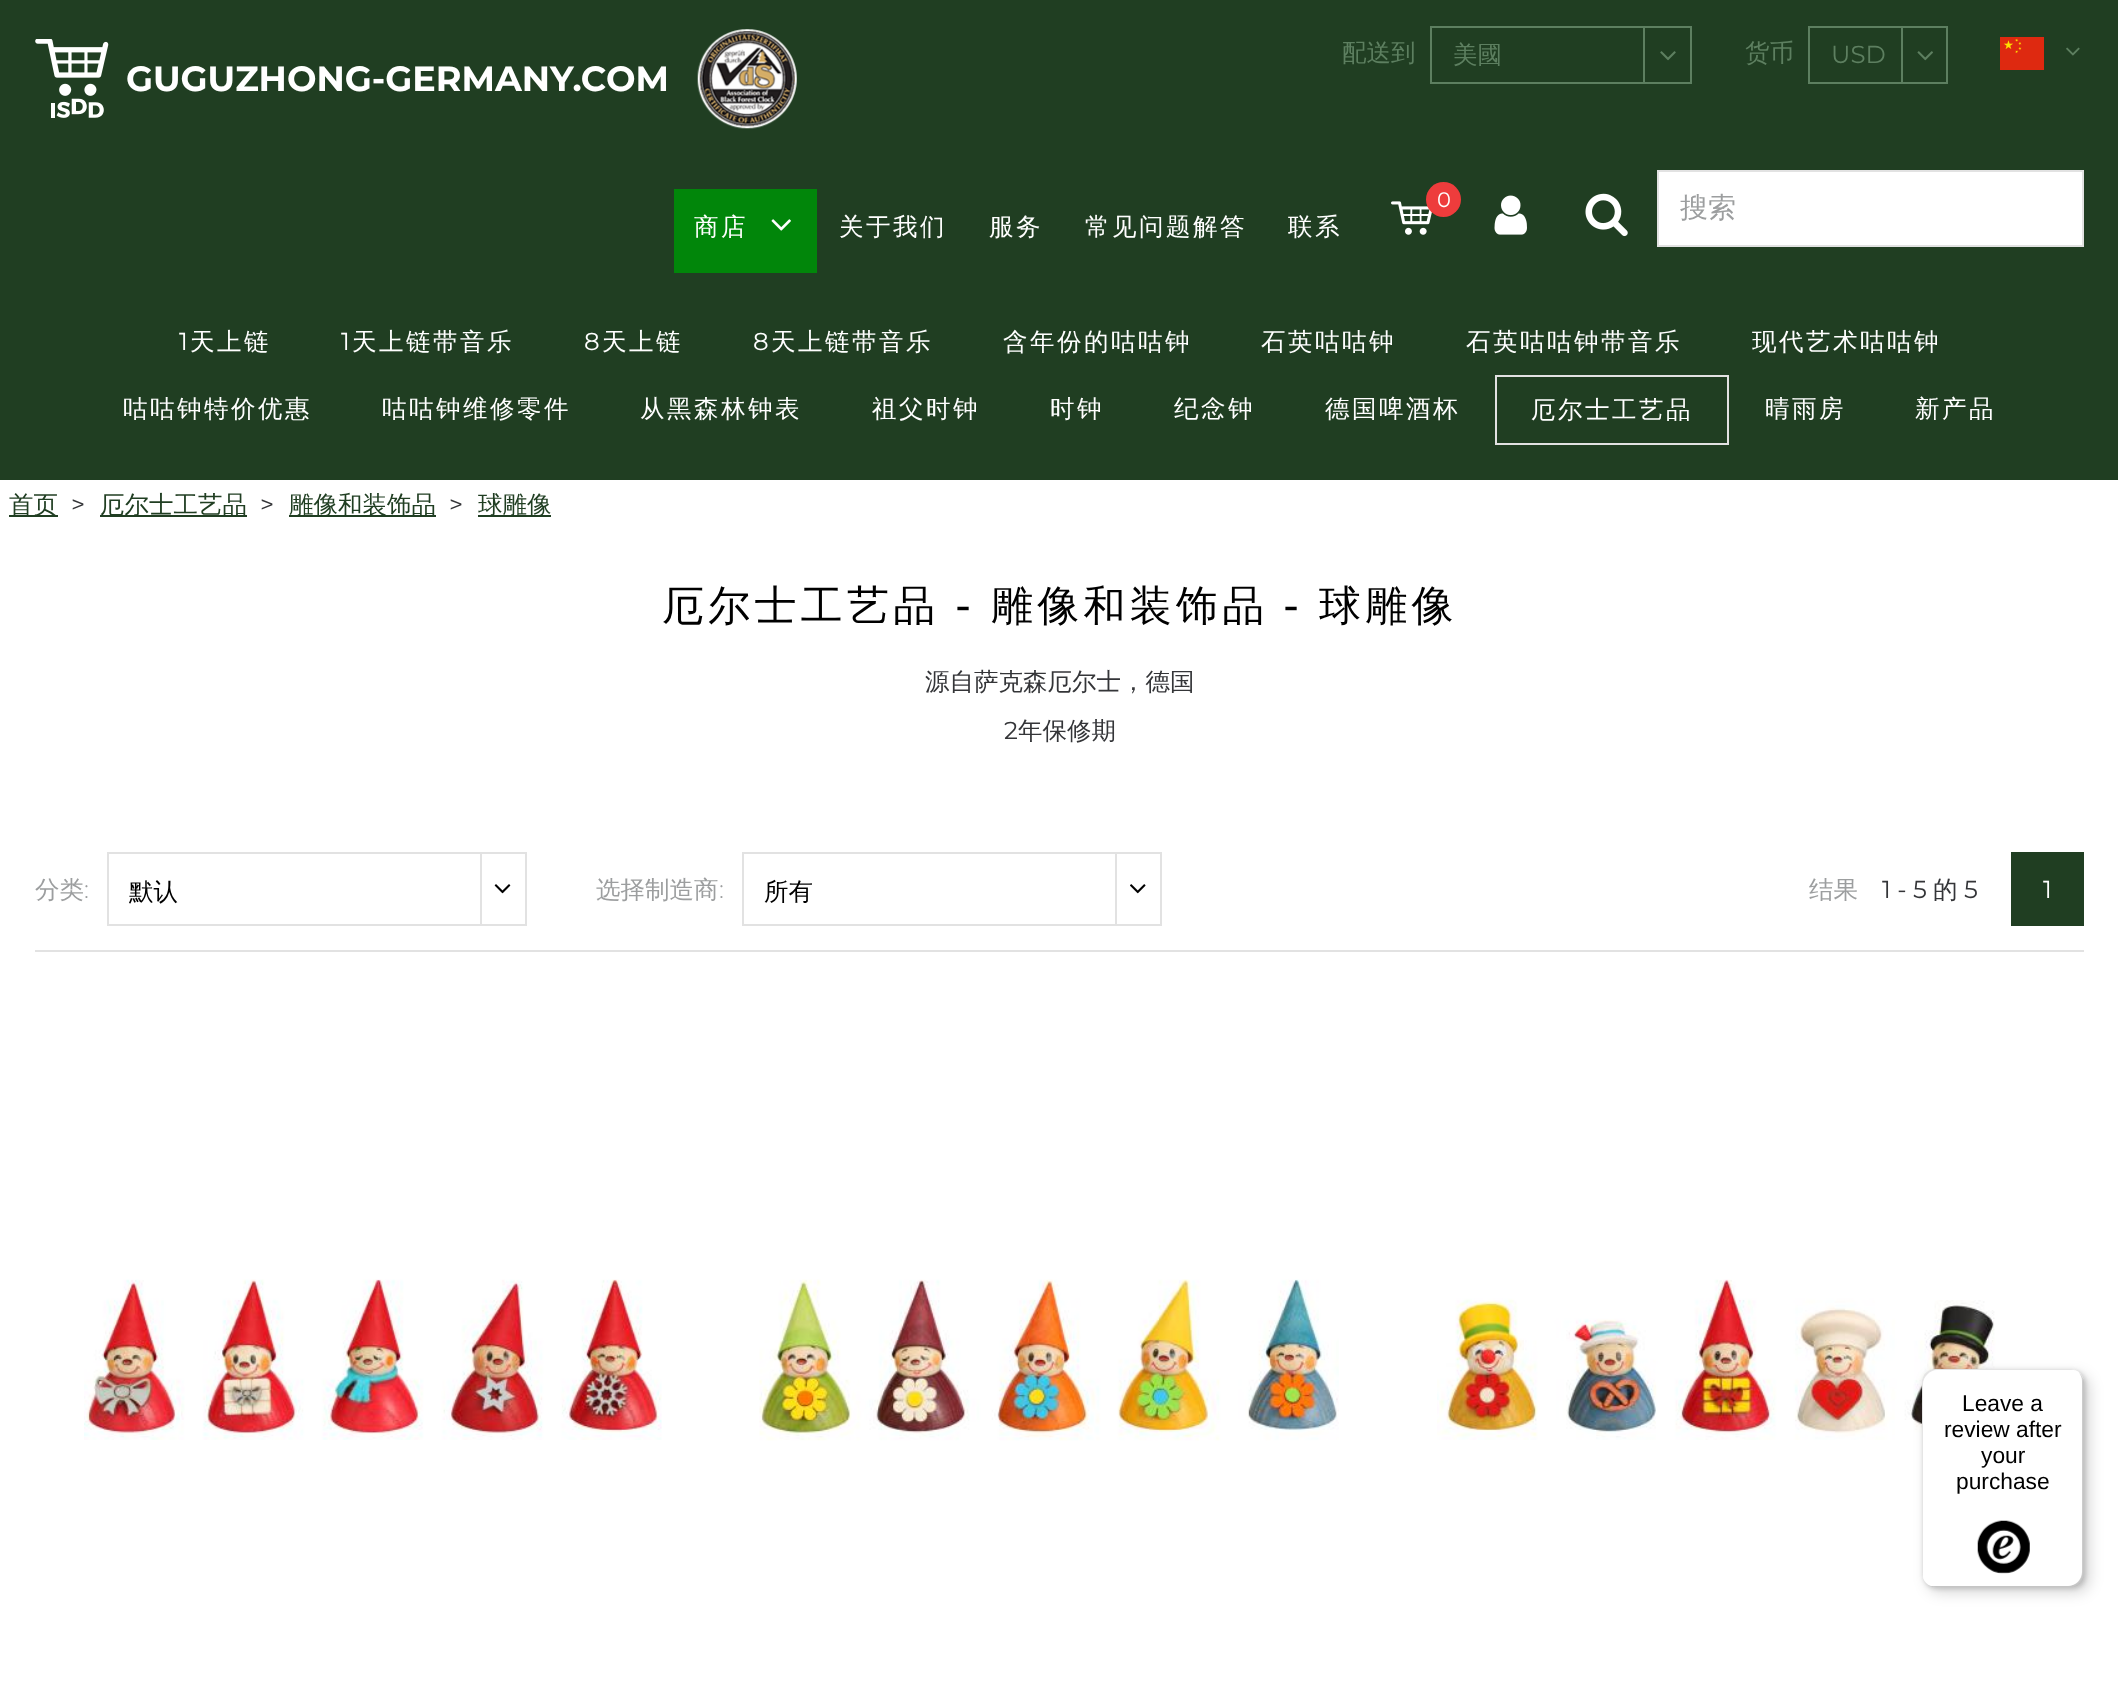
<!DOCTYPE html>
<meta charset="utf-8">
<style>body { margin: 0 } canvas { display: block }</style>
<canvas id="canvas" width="2118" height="1681"></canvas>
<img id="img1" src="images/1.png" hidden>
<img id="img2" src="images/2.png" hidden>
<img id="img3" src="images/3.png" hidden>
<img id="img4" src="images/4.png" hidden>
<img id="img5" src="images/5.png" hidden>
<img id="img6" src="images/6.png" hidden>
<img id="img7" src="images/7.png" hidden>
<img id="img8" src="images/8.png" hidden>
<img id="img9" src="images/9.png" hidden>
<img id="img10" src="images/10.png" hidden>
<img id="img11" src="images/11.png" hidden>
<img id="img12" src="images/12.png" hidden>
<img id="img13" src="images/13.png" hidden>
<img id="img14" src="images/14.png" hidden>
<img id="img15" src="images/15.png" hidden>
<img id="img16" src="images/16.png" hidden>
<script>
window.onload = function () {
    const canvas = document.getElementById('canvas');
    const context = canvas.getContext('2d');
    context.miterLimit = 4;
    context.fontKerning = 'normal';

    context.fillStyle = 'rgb(255, 255, 255)';
    context.fillRect(0, 0, 2118, 1681);
    context.fillStyle = 'rgb(32, 62, 34)';
    context.fillRect(0, 0, 2118, 480);
    context.strokeStyle = 'rgb(93, 127, 96)';
    context.lineWidth = 2;
    context.strokeRect(1431, 27, 260, 56);
    context.fillStyle = 'rgb(93, 127, 96)';
    context.fillRect(1643, 28, 2, 54);
    context.drawImage(document.getElementById('img1'), 1660, 51, 16, 10);
    context.strokeRect(1809, 27, 138, 56);
    context.fillRect(1901, 28, 2, 54);
    context.drawImage(document.getElementById('img2'), 1917, 51, 16, 10);
    context.drawImage(document.getElementById('img3'), 2000, 37, 44, 33);
    context.drawImage(document.getElementById('img4'), 2066, 47, 14, 9);
    context.drawImage(document.getElementById('img5'), 35, 39, 74, 79);
    context.drawImage(document.getElementById('img6'), 697, 29, 100, 100);
    context.drawImage(document.getElementById('img7'), 1391, 201, 41, 34);
    context.fillStyle = 'rgb(238, 60, 60)';
    context.beginPath();
    context.arc(1443.5, 199.5, 17.5, 0, 2 * Math.PI);
    context.fill();
    context.drawImage(document.getElementById('img8'), 1494, 195, 33, 40);
    context.drawImage(document.getElementById('img9'), 1585, 193, 43, 44);
    context.fillStyle = 'rgb(255, 255, 255)';
    context.beginPath();
    context.rect(1658, 171, 425, 75);
    context.fill();
    context.strokeStyle = 'rgb(226, 226, 226)';
    context.stroke();
    context.fillStyle = 'rgb(1, 134, 10)';
    context.fillRect(674, 189, 143, 84);
    context.drawImage(document.getElementById('img10'), 771, 219, 20, 12);
    context.strokeRect(1496, 376, 232, 68);
    context.fillStyle = 'rgb(32, 62, 34)';
    context.fillRect(9, 515, 49, 2);
    context.fillRect(100, 515, 147, 2);
    context.fillRect(289, 515, 147, 2);
    context.fillRect(478, 515, 73, 2);
    context.fillStyle = 'rgb(226, 226, 226)';
    context.fillRect(35, 950, 2049, 2);
    context.strokeRect(108, 853, 418, 72);
    context.fillRect(480, 854, 2, 70);
    context.drawImage(document.getElementById('img11'), 494, 884, 17, 10);
    context.strokeRect(743, 853, 418, 72);
    context.fillRect(1115, 854, 2, 70);
    context.drawImage(document.getElementById('img12'), 1130, 884, 16, 10);
    context.fillStyle = 'rgb(32, 62, 34)';
    context.fillRect(2011, 852, 73, 74);
    context.drawImage(document.getElementById('img13'), 84, 1279, 578, 161);
    context.drawImage(document.getElementById('img14'), 759, 1279, 580, 162);
    context.drawImage(document.getElementById('img15'), 1437, 1279, 567, 161);
    context.fillStyle = 'rgba(0, 0, 0, 0.15)';
    context.filter = 'blur(7px)';
    context.beginPath();
    context.roundRect(1927, 1374, 163, 219, 14);
    context.fill();
    context.filter = 'none';
    context.filter = 'blur(2px)';
    context.beginPath();
    context.roundRect(1923, 1370, 163, 219, 14);
    context.fill();
    context.filter = 'none';
    context.fillStyle = 'rgb(255, 255, 255)';
    context.beginPath();
    context.roundRect(1922, 1369, 162, 218, 14);
    context.fill();
    context.fillStyle = 'rgba(0, 0, 0, 0.1)';
    context.beginPath();
    context.moveTo(1937, 1370);
    context.lineTo(2072, 1370);
    context.bezierCurveTo(2074, 1370, 2076, 1370, 2077, 1371);
    context.bezierCurveTo(2075, 1370, 2073, 1369, 2070, 1369);
    context.lineTo(1936, 1369);
    context.bezierCurveTo(1928, 1369, 1922, 1375, 1922, 1383);
    context.lineTo(1922, 1573);
    context.bezierCurveTo(1922, 1576, 1923, 1578, 1924, 1580);
    context.bezierCurveTo(1923, 1579, 1923, 1577, 1923, 1575);
    context.lineTo(1923, 1384);
    context.bezierCurveTo(1923, 1377, 1930, 1370, 1937, 1370);
    context.closePath();
    context.fill();
    context.fillStyle = 'rgba(0, 0, 0, 0.2)';
    context.beginPath();
    context.moveTo(1929, 1585);
    context.bezierCurveTo(1931, 1586, 1933, 1587, 1936, 1587);
    context.lineTo(2070, 1587);
    context.bezierCurveTo(2078, 1587, 2084, 1581, 2084, 1573);
    context.lineTo(2084, 1383);
    context.bezierCurveTo(2084, 1379, 2082, 1375, 2079, 1373);
    context.bezierCurveTo(2081, 1375, 2082, 1378, 2082, 1381);
    context.lineTo(2082, 1572);
    context.bezierCurveTo(2082, 1579, 2076, 1586, 2068, 1586);
    context.lineTo(1934, 1586);
    context.bezierCurveTo(1932, 1586, 1930, 1586, 1929, 1585);
    context.closePath();
    context.fill();
    context.fillStyle = 'rgba(50, 50, 50, 0.2)';
    context.beginPath();
    context.moveTo(1928, 1585);
    context.bezierCurveTo(1930, 1586, 1933, 1587, 1936, 1587);
    context.lineTo(2070, 1587);
    context.bezierCurveTo(2078, 1587, 2084, 1581, 2084, 1573);
    context.lineTo(2084, 1383);
    context.bezierCurveTo(2084, 1380, 2083, 1377, 2082, 1375);
    context.bezierCurveTo(2083, 1377, 2083, 1379, 2083, 1381);
    context.lineTo(2083, 1572);
    context.bezierCurveTo(2083, 1580, 2077, 1586, 2069, 1586);
    context.lineTo(1934, 1586);
    context.bezierCurveTo(1932, 1586, 1930, 1586, 1928, 1585);
    context.closePath();
    context.fill();
    context.fillStyle = 'rgba(255, 255, 255, 0.3)';
    context.beginPath();
    context.moveTo(1927, 1583);
    context.bezierCurveTo(1929, 1586, 1932, 1587, 1936, 1587);
    context.lineTo(2070, 1587);
    context.bezierCurveTo(2078, 1587, 2084, 1581, 2084, 1573);
    context.lineTo(2084, 1383);
    context.bezierCurveTo(2084, 1379, 2083, 1376, 2080, 1374);
    context.bezierCurveTo(2082, 1376, 2083, 1379, 2083, 1382);
    context.lineTo(2083, 1572);
    context.bezierCurveTo(2083, 1580, 2077, 1586, 2069, 1586);
    context.lineTo(1935, 1586);
    context.bezierCurveTo(1932, 1586, 1929, 1585, 1927, 1583);
    context.closePath();
    context.fill();
    context.drawImage(document.getElementById('img16'), 1977, 1520, 53, 54);
    context.font = '500 24.5px WenQuanYi Zen Hei';
    context.fillStyle = 'rgb(93, 127, 96)';
    context.fillText('配送到', 1342, 61);
    context.fillText('美國', 1453, 63);
    context.fillText('货币', 1745, 61);
    context.font = '100 24.5px Montserrat';
    context.fillText('USD', 1831, 63);
    context.font = '100 35px "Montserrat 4"';
    context.fillStyle = 'rgb(255, 255, 255)';
    context.fillText('GUGUZHONG-GERMANY.COM', 126, 91);
    context.font = '100 21px Montserrat';
    context.fillText('0', 1437, 207);
    context.font = '500 28px WenQuanYi Zen Hei';
    context.fillStyle = 'rgb(156, 158, 159)';
    context.fillText('搜索', 1680, 217);
    context.letterSpacing = '2.5px';
    context.font = '500 24.5px WenQuanYi Zen Hei';
    context.fillStyle = 'rgb(255, 255, 255)';
    context.fillText('商店', 694, 235);
    context.fillText('关于我们', 839, 235);
    context.fillText('服务', 989, 235);
    context.fillText('常见问题解答', 1085, 235);
    context.fillText('联系', 1288, 235);
    context.font = '100 24.5px Montserrat';
    context.fillText('1', 179, 350);
    context.font = '500 24.5px WenQuanYi Zen Hei';
    context.fillText('天上链', 190, 350);
    context.font = '100 24.5px Montserrat';
    context.fillText('1', 341, 350);
    context.font = '500 24.5px WenQuanYi Zen Hei';
    context.fillText('天上链带音乐', 352, 350);
    context.font = '100 24.5px Montserrat';
    context.fillText('8', 584, 350);
    context.font = '500 24.5px WenQuanYi Zen Hei';
    context.fillText('天上链', 602, 350);
    context.font = '100 24.5px Montserrat';
    context.fillText('8', 753, 350);
    context.font = '500 24.5px WenQuanYi Zen Hei';
    context.fillText('天上链带音乐', 771, 350);
    context.fillText('含年份的咕咕钟', 1003, 350);
    context.fillText('石英咕咕钟', 1261, 350);
    context.fillText('石英咕咕钟带音乐', 1466, 350);
    context.fillText('现代艺术咕咕钟', 1752, 350);
    context.fillText('咕咕钟特价优惠', 123, 417);
    context.fillText('咕咕钟维修零件', 382, 417);
    context.fillText('从黑森林钟表', 640, 417);
    context.fillText('祖父时钟', 872, 417);
    context.fillText('时钟', 1050, 417);
    context.fillText('纪念钟', 1174, 417);
    context.fillText('德国啤酒杯', 1325, 417);
    context.fillText('厄尔士工艺品', 1531, 418);
    context.fillText('晴雨房', 1765, 417);
    context.fillText('新产品', 1915, 417);
    context.letterSpacing = '0px';
    context.fillStyle = 'rgb(32, 62, 34)';
    context.fillText('首页', 9, 513);
    context.font = '100 24.5px Montserrat';
    context.fillStyle = 'rgb(52, 53, 56)';
    context.fillText('>', 71, 513);
    context.font = '500 24.5px WenQuanYi Zen Hei';
    context.fillStyle = 'rgb(32, 62, 34)';
    context.fillText('厄尔士工艺品', 100, 513);
    context.font = '100 24.5px Montserrat';
    context.fillStyle = 'rgb(52, 53, 56)';
    context.fillText('>', 260, 513);
    context.font = '500 24.5px WenQuanYi Zen Hei';
    context.fillStyle = 'rgb(32, 62, 34)';
    context.fillText('雕像和装饰品', 289, 513);
    context.font = '100 24.5px Montserrat';
    context.fillStyle = 'rgb(52, 53, 56)';
    context.fillText('>', 449, 513);
    context.font = '500 24.5px WenQuanYi Zen Hei';
    context.fillStyle = 'rgb(32, 62, 34)';
    context.fillText('球雕像', 478, 513);
    context.letterSpacing = '4.25px';
    context.font = '500 42px WenQuanYi Zen Hei';
    context.fillStyle = 'rgb(0, 0, 0)';
    context.fillText('厄尔士工艺品', 662, 620);
    context.font = '100 42px "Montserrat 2"';
    context.fillText('-', 955, 620);
    context.font = '500 42px WenQuanYi Zen Hei';
    context.fillText('雕像和装饰品', 991, 620);
    context.font = '100 42px "Montserrat 2"';
    context.fillText('-', 1283, 620);
    context.font = '500 42px WenQuanYi Zen Hei';
    context.fillText('球雕像', 1319, 620);
    context.letterSpacing = '0px';
    context.font = '500 24.5px WenQuanYi Zen Hei';
    context.fillStyle = 'rgb(52, 53, 56)';
    context.fillText('源自萨克森厄尔士，德国', 925, 690);
    context.font = '100 24.5px Montserrat';
    context.fillText('2', 1004, 739);
    context.font = '500 24.5px WenQuanYi Zen Hei';
    context.fillText('年保修期', 1018, 739);
    context.fillStyle = 'rgb(156, 158, 159)';
    context.fillText('分类', 35, 898);
    context.font = '100 24.5px "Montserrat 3"';
    context.fillText(':', 84, 898);
    context.font = '500 24.5px WenQuanYi Zen Hei';
    context.fillStyle = 'rgb(0, 0, 0)';
    context.fillText('默认', 129, 900);
    context.fillStyle = 'rgb(156, 158, 159)';
    context.fillText('选择制造商', 596, 898);
    context.font = '100 24.5px "Montserrat 3"';
    context.fillText(':', 719, 898);
    context.font = '500 24.5px WenQuanYi Zen Hei';
    context.fillStyle = 'rgb(0, 0, 0)';
    context.fillText('所有', 764, 900);
    context.fillStyle = 'rgb(156, 158, 159)';
    context.fillText('结果', 1809, 898);
    context.font = '100 24.5px Montserrat';
    context.fillStyle = 'rgb(52, 53, 56)';
    context.fillText('1 - 5', 1882, 898);
    context.font = '500 24.5px WenQuanYi Zen Hei';
    context.fillText('的', 1933, 898);
    context.font = '100 24.5px Montserrat';
    context.fillText('5', 1964, 898);
    context.fillStyle = 'rgb(255, 255, 255)';
    context.fillText('1', 2043, 898);
    context.font = '22.75px Liberation Sans';
    context.fillStyle = 'rgb(0, 0, 0)';
    context.fillText('Leave a', 1962, 1411);
    context.fillText('review after', 1944, 1437);
    context.fillText('your', 1981, 1463);
    context.fillText('purchase', 1956, 1489);
};
</script>
